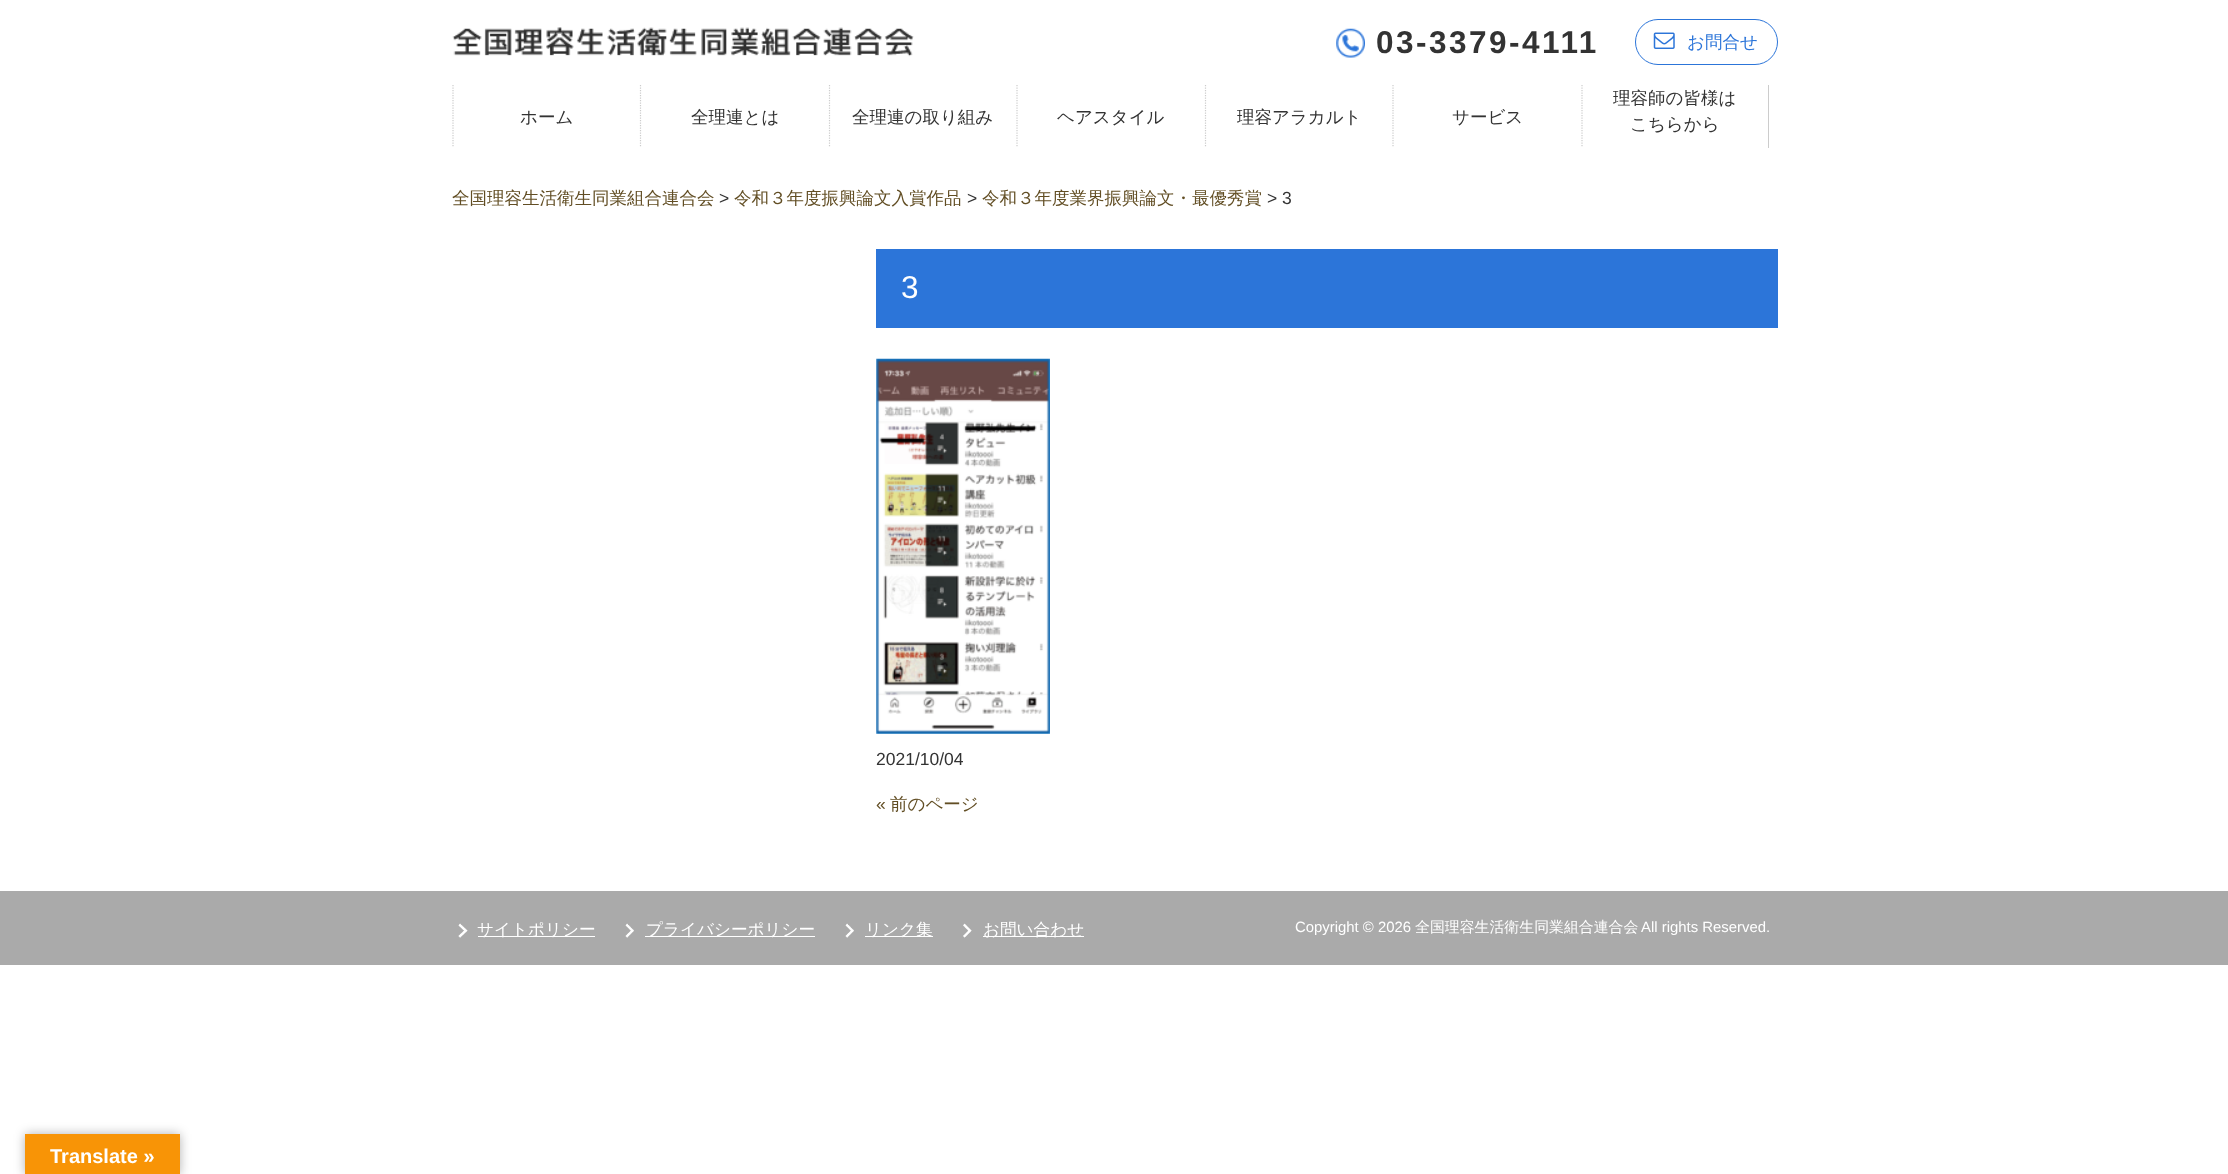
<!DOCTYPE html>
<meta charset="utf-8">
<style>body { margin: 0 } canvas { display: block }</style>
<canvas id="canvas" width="2228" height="1174"></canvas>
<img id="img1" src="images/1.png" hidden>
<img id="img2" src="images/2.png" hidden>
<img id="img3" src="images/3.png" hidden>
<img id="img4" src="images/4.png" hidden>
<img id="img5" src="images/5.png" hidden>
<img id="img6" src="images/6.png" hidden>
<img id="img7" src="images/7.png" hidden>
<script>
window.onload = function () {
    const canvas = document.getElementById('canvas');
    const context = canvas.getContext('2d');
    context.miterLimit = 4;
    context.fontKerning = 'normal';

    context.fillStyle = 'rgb(255, 255, 255)';
    context.fillRect(0, 0, 2228, 1174);
    context.drawImage(document.getElementById('img1'), 452, 27, 462, 30);
    context.drawImage(document.getElementById('img2'), 1336, 28, 29, 30);
    context.beginPath();
    context.roundRect(1635.5, 19.5, 142, 45, 22.5);
    context.strokeStyle = 'rgb(44, 117, 217)';
    context.stroke();
    context.drawImage(document.getElementById('img3'), 1653, 32, 22, 17);
    context.beginPath();
    context.moveTo(453, 85);
    context.lineTo(453, 147.5);
    context.strokeStyle = 'rgb(204, 204, 204)';
    context.lineWidth = 1.2;
    context.setLineDash([1.25, 1.25]);
    context.stroke();
    context.beginPath();
    context.moveTo(640.5, 85);
    context.lineTo(640.5, 147.5);
    context.stroke();
    context.beginPath();
    context.moveTo(829.5, 85);
    context.lineTo(829.5, 147.5);
    context.stroke();
    context.beginPath();
    context.moveTo(1017, 85);
    context.lineTo(1017, 147.5);
    context.stroke();
    context.beginPath();
    context.moveTo(1205.5, 85);
    context.lineTo(1205.5, 147.5);
    context.stroke();
    context.beginPath();
    context.moveTo(1393, 85);
    context.lineTo(1393, 147.5);
    context.stroke();
    context.fillStyle = 'rgb(204, 204, 204)';
    context.fillRect(1768, 85, 1, 63);
    context.beginPath();
    context.moveTo(1582, 85);
    context.lineTo(1582, 147.5);
    context.stroke();
    context.fillStyle = 'rgb(44, 117, 217)';
    context.fillRect(876, 249, 902, 79);
    context.drawImage(document.getElementById('img4'), 876, 358, 174, 376);
    context.fillStyle = 'rgb(170, 170, 170)';
    context.fillRect(0, 891, 2228, 74);
    context.drawImage(document.getElementById('img5'), 458, 923, 10, 15);
    context.fillStyle = 'rgb(255, 255, 255)';
    context.fillRect(478, 936, 117, 1);
    context.drawImage(document.getElementById('img6'), 625, 923, 9, 15);
    context.fillRect(645, 936, 170, 1);
    context.drawImage(document.getElementById('img6'), 845, 923, 9, 15);
    context.fillRect(865, 936, 68, 1);
    context.drawImage(document.getElementById('img7'), 963, 923, 9, 15);
    context.fillRect(983, 936, 101, 1);
    context.fillStyle = 'rgba(0, 0, 0, 0.3)';
    context.filter = 'blur(5.5px)';
    context.beginPath();
    context.rect(25, 1134, 155, 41);
    context.fill();
    context.filter = 'none';
    context.fillStyle = 'rgb(248, 148, 6)';
    context.fillRect(25, 1134, 155, 40);
    context.letterSpacing = '2.5px';
    context.font = 'bold 31.5px Liberation Sans';
    context.fillStyle = 'rgb(51, 51, 51)';
    context.fillText('03-3379-4111', 1376, 53);
    context.letterSpacing = '0px';
    context.font = '500 17.5px WenQuanYi Zen Hei';
    context.fillStyle = 'rgb(44, 117, 217)';
    context.fillText('お問合せ', 1687, 48);
    context.fillStyle = 'rgb(51, 51, 51)';
    context.fillText('ホーム', 520, 123);
    context.fillText('全理連とは', 691, 123);
    context.fillText('全理連の取り組み', 852, 123);
    context.fillText('ヘアスタイル', 1057, 123);
    context.fillText('理容アラカルト', 1237, 123);
    context.fillText('サービス', 1452, 123);
    context.fillText('理容師の皆様は', 1613, 104);
    context.fillText('こちらから', 1630, 130);
    context.fillStyle = 'rgb(98, 78, 36)';
    context.fillText('全国理容生活衛生同業組合連合会', 452, 204);
    context.font = '17.5px Liberation Sans';
    context.fillStyle = 'rgb(51, 51, 51)';
    context.fillText('>', 719, 204);
    context.font = '500 17.5px WenQuanYi Zen Hei';
    context.fillStyle = 'rgb(98, 78, 36)';
    context.fillText('令和３年度振興論文入賞作品', 734, 204);
    context.font = '17.5px Liberation Sans';
    context.fillStyle = 'rgb(51, 51, 51)';
    context.fillText('>', 967, 204);
    context.font = '500 17.5px WenQuanYi Zen Hei';
    context.fillStyle = 'rgb(98, 78, 36)';
    context.fillText('令和３年度業界振興論文・最優秀賞', 982, 204);
    context.font = '17.5px Liberation Sans';
    context.fillStyle = 'rgb(51, 51, 51)';
    context.fillText('> 3', 1267, 204);
    context.font = '31.5px Liberation Sans';
    context.fillStyle = 'rgb(255, 255, 255)';
    context.fillText('3', 901, 298);
    context.font = '17.5px Liberation Sans';
    context.fillStyle = 'rgb(51, 51, 51)';
    context.fillText('2021/10/04', 876, 765);
    context.fillStyle = 'rgb(98, 78, 36)';
    context.fillText('«', 876, 810);
    context.font = '500 17.5px WenQuanYi Zen Hei';
    context.fillText('前のページ', 890, 810);
    context.font = '500 16.6px WenQuanYi Zen Hei';
    context.fillStyle = 'rgb(255, 255, 255)';
    context.fillText('サイトポリシー', 477, 935);
    context.fillText('プライバシーポリシー', 646, 935);
    context.fillText('リンク集', 865, 935);
    context.fillText('お問い合わせ', 983, 935);
    context.font = '14.9px Liberation Sans';
    context.fillText('Copyright © 2026', 1295, 932);
    context.font = '500 14.9px WenQuanYi Zen Hei';
    context.fillText('全国理容生活衛生同業組合連合会', 1415, 932);
    context.font = '14.9px Liberation Sans';
    context.fillText('All rights Reserved.', 1641, 932);
    context.font = 'bold 20px Liberation Sans';
    context.fillText('Translate »', 50, 1163);
};
</script>
